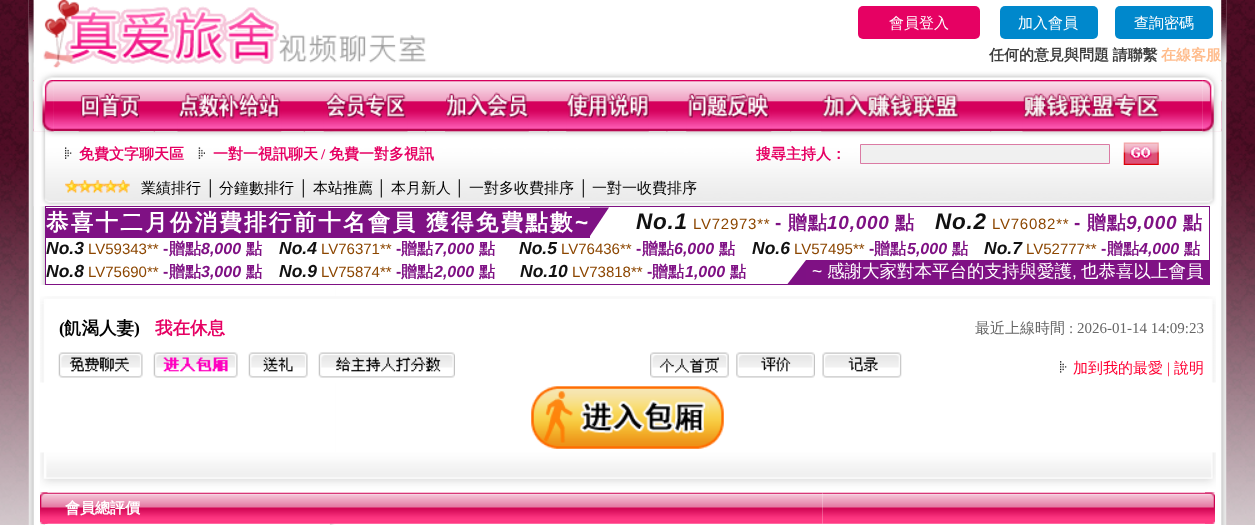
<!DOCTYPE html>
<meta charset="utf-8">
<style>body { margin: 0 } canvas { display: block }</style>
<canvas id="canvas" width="1255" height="525"></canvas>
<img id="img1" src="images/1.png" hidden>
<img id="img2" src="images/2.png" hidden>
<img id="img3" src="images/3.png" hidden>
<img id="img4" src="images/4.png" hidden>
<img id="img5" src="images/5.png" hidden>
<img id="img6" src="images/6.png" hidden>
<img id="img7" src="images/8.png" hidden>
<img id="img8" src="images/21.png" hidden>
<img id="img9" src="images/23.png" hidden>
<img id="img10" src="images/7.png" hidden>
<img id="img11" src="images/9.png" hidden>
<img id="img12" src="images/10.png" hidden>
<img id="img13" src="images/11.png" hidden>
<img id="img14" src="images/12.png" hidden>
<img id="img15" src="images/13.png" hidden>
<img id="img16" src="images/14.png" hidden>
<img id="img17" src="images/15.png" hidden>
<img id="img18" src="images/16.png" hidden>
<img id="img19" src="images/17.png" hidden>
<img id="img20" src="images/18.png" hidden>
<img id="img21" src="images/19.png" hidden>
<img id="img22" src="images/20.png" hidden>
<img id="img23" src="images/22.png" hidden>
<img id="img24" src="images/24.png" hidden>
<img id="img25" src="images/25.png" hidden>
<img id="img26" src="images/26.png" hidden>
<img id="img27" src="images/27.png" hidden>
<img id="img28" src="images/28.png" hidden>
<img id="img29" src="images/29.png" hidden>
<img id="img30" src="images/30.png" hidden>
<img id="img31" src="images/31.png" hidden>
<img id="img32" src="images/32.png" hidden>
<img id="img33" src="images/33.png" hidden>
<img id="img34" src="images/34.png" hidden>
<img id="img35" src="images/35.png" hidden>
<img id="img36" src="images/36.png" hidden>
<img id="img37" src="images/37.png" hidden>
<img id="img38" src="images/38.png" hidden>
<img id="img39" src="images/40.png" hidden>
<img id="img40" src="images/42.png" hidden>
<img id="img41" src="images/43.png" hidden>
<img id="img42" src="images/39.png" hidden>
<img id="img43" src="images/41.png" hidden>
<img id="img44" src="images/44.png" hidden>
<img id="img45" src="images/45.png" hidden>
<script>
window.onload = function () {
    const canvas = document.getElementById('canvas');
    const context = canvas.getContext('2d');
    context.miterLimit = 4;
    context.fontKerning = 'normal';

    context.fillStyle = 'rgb(255, 255, 255)';
    context.fillRect(0, 0, 1255, 525);
    context.drawImage(document.getElementById('img1'), 0, 0, 1255, 525);
    context.drawImage(document.getElementById('img2'), 28, 0, 1199, 525);
    context.drawImage(document.getElementById('img3'), 28, 0, 6, 63);
    context.fillRect(40, 0, 295, 68);
    context.drawImage(document.getElementById('img4'), 33, 0, 394, 68);
    context.fillStyle = 'rgb(230, 1, 99)';
    context.beginPath();
    context.roundRect(858, 6, 122, 33, 5);
    context.fill();
    context.fillStyle = 'rgb(0, 136, 204)';
    context.beginPath();
    context.roundRect(1000, 6, 98, 33, 5);
    context.fill();
    context.beginPath();
    context.roundRect(1115, 6, 98, 33, 5);
    context.fill();
    context.drawImage(document.getElementById('img5'), 33, 67, 1189, 13);
    context.drawImage(document.getElementById('img6'), 33, 80, 21, 52);
    context.drawImage(document.getElementById('img7'), 53, 80, 1150, 52);
    context.drawImage(document.getElementById('img8'), 1202, 80, 20, 52);
    context.drawImage(document.getElementById('img9'), 33, 131, 1189, 76);
    context.drawImage(document.getElementById('img10'), 33, 80, 21, 52);
    context.drawImage(document.getElementById('img11'), 78, 92, 62, 40);
    context.drawImage(document.getElementById('img12'), 153, 131, 2, 1);
    context.drawImage(document.getElementById('img13'), 177, 92, 105, 40);
    context.drawImage(document.getElementById('img12'), 303, 131, 2, 1);
    context.drawImage(document.getElementById('img14'), 323, 92, 85, 40);
    context.drawImage(document.getElementById('img15'), 425, 131, 2, 1);
    context.drawImage(document.getElementById('img16'), 445, 92, 84, 40);
    context.drawImage(document.getElementById('img17'), 547, 131, 2, 1);
    context.drawImage(document.getElementById('img18'), 566, 92, 83, 40);
    context.drawImage(document.getElementById('img19'), 666, 131, 2, 1);
    context.drawImage(document.getElementById('img20'), 686, 92, 86, 40);
    context.drawImage(document.getElementById('img15'), 790, 131, 2, 1);
    context.drawImage(document.getElementById('img21'), 821, 93, 139, 39);
    context.drawImage(document.getElementById('img15'), 990, 131, 2, 1);
    context.drawImage(document.getElementById('img22'), 1022, 93, 140, 39);
    context.drawImage(document.getElementById('img23'), 1202, 80, 20, 52);
    context.drawImage(document.getElementById('img24'), 65, 147, 7, 12);
    context.drawImage(document.getElementById('img25'), 198, 147, 7, 12);
    context.fillStyle = 'rgb(240, 240, 240)';
    context.beginPath();
    context.rect(860.5, 144.5, 249, 19);
    context.fill();
    context.strokeStyle = 'rgb(219, 123, 164)';
    context.stroke();
    context.drawImage(document.getElementById('img26'), 1123, 142, 36, 23);
    context.drawImage(document.getElementById('img27'), 65, 180, 65, 13);
    context.fillStyle = 'rgb(255, 255, 255)';
    context.fillRect(329, 207, 6, 77);
    context.strokeStyle = 'rgb(127, 17, 132)';
    context.strokeRect(45.5, 206.5, 1164, 78);
    context.fillStyle = 'rgb(127, 17, 132)';
    context.fillRect(46, 208, 544, 30);
    context.fillStyle = 'rgb(126, 17, 132)';
    context.beginPath();
    context.moveTo(590, 207.5);
    context.lineTo(609, 207.5);
    context.lineTo(590, 236);
    context.closePath();
    context.fill();
    context.beginPath();
    context.moveTo(806, 284);
    context.lineTo(787.5, 284);
    context.lineTo(806, 260);
    context.closePath();
    context.fill();
    context.fillStyle = 'rgb(127, 17, 132)';
    context.fillRect(806, 260, 403, 24);
    context.fillStyle = 'rgb(255, 255, 255)';
    context.fillRect(40, 285, 295, 208);
    context.drawImage(document.getElementById('img28'), 40, 296, 1176, 8);
    context.drawImage(document.getElementById('img29'), 40, 304, 1176, 79);
    context.drawImage(document.getElementById('img30'), 58, 352, 85, 26);
    context.drawImage(document.getElementById('img31'), 153, 352, 85, 26);
    context.drawImage(document.getElementById('img32'), 248, 352, 60, 26);
    context.drawImage(document.getElementById('img33'), 318, 352, 137, 26);
    context.drawImage(document.getElementById('img34'), 650, 352, 79, 26);
    context.drawImage(document.getElementById('img35'), 736, 352, 79, 26);
    context.drawImage(document.getElementById('img36'), 822, 352, 80, 26);
    context.drawImage(document.getElementById('img37'), 1060, 361, 7, 12);
    context.drawImage(document.getElementById('img38'), 531, 386, 193, 63);
    context.drawImage(document.getElementById('img39'), 40, 492, 25, 32);
    context.drawImage(document.getElementById('img40'), 65, 492, 758, 32);
    context.drawImage(document.getElementById('img41'), 822, 492, 393, 32);
    context.drawImage(document.getElementById('img42'), 40, 452, 1176, 41);
    context.drawImage(document.getElementById('img43'), 40, 492, 8, 32);
    context.drawImage(document.getElementById('img44'), 1205, 492, 10, 32);
    context.drawImage(document.getElementById('img45'), 1221, 0, 6, 63);
    context.font = '500 15px WenQuanYi Zen Hei';
    context.fillText('會員登入', 889, 28);
    context.fillText('加入會員', 1018, 28);
    context.fillText('查詢密碼', 1134, 28);
    context.wordSpacing = '-1px';
    context.font = 'bold 15px WenQuanYi Zen Hei';
    context.fillStyle = 'rgb(60, 60, 60)';
    context.fillText('任何的意見與問題 請聯繫', 989, 60);
    context.wordSpacing = '0px';
    context.fillStyle = 'rgb(255, 188, 140)';
    context.fillText('在線客服', 1161, 60);
    context.fillStyle = 'rgb(230, 1, 99)';
    context.fillText('免費文字聊天區', 79, 159);
    context.fillText('一對一視訊聊天', 213, 159);
    context.font = 'bold 15px Liberation Serif';
    context.fillText('/', 321, 159);
    context.font = 'bold 15px WenQuanYi Zen Hei';
    context.fillText('免費一對多視訊', 329, 159);
    context.fillText('搜尋主持人：', 756, 159);
    context.font = '500 15px WenQuanYi Zen Hei';
    context.fillStyle = 'rgb(0, 0, 0)';
    context.fillText('業績排行', 141, 193);
    context.font = '15px Liberation Serif';
    context.fillText('│', 205, 193);
    context.font = '500 15px WenQuanYi Zen Hei';
    context.fillText('分鐘數排行', 219, 193);
    context.font = '15px Liberation Serif';
    context.fillText('│', 298, 193);
    context.font = '500 15px WenQuanYi Zen Hei';
    context.fillText('本站推薦', 313, 193);
    context.font = '15px Liberation Serif';
    context.fillText('│', 376, 193);
    context.font = '500 15px WenQuanYi Zen Hei';
    context.fillText('本月新人', 391, 193);
    context.font = '15px Liberation Serif';
    context.fillText('│', 454, 193);
    context.font = '500 15px WenQuanYi Zen Hei';
    context.fillText('一對多收費排序', 469, 193);
    context.font = '15px Liberation Serif';
    context.fillText('│', 578, 193);
    context.font = '500 15px WenQuanYi Zen Hei';
    context.fillText('一對一收費排序', 592, 193);
    context.letterSpacing = '2.25px';
    context.font = 'bold 22.5px WenQuanYi Zen Hei';
    context.fillStyle = 'rgb(255, 255, 255)';
    context.fillText('恭喜十二月份消費排行前十名會員 獲得免費點數', 46, 230);
    context.font = 'bold 22.5px Liberation Sans';
    context.fillText('~', 575, 230);
    context.letterSpacing = '0.75px';
    context.font = 'italic bold 22.5px Liberation Sans';
    context.fillStyle = 'rgb(17, 17, 17)';
    context.fillText('No.1', 636, 229);
    context.font = '15px Liberation Sans';
    context.fillStyle = 'rgb(140, 70, 0)';
    context.fillText('LV72973**', 693, 229);
    context.font = 'bold 19px Liberation Sans';
    context.fillStyle = 'rgb(127, 17, 132)';
    context.fillText('-', 775, 229);
    context.font = 'bold 19px WenQuanYi Zen Hei';
    context.fillText('贈點', 788, 229);
    context.font = 'italic bold 19px Liberation Sans';
    context.fillText('10,000', 827, 229);
    context.font = 'bold 19px WenQuanYi Zen Hei';
    context.fillText('點', 895, 229);
    context.font = 'italic bold 22.5px Liberation Sans';
    context.fillStyle = 'rgb(17, 17, 17)';
    context.fillText('No.2', 935, 229);
    context.font = '15px Liberation Sans';
    context.fillStyle = 'rgb(140, 70, 0)';
    context.fillText('LV76082**', 992, 229);
    context.font = 'bold 19px Liberation Sans';
    context.fillStyle = 'rgb(127, 17, 132)';
    context.fillText('-', 1074, 229);
    context.font = 'bold 19px WenQuanYi Zen Hei';
    context.fillText('贈點', 1087, 229);
    context.font = 'italic bold 19px Liberation Sans';
    context.fillText('9,000', 1126, 229);
    context.font = 'bold 19px WenQuanYi Zen Hei';
    context.fillText('點', 1183, 229);
    context.letterSpacing = '0px';
    context.font = 'italic bold 17.5px Liberation Sans';
    context.fillStyle = 'rgb(17, 17, 17)';
    context.fillText('No.3', 46, 254);
    context.font = '15px Liberation Sans';
    context.fillStyle = 'rgb(140, 70, 0)';
    context.fillText('LV59343**', 88, 254);
    context.font = 'bold 16px Liberation Sans';
    context.fillStyle = 'rgb(127, 17, 132)';
    context.fillText('-', 163, 254);
    context.font = 'bold 16px WenQuanYi Zen Hei';
    context.fillText('贈點', 169, 254);
    context.font = 'italic bold 16px Liberation Sans';
    context.fillText('8,000', 201, 254);
    context.font = 'bold 16px WenQuanYi Zen Hei';
    context.fillText('點', 246, 254);
    context.font = 'italic bold 17.5px Liberation Sans';
    context.fillStyle = 'rgb(17, 17, 17)';
    context.fillText('No.4', 279, 254);
    context.font = '15px Liberation Sans';
    context.fillStyle = 'rgb(140, 70, 0)';
    context.fillText('LV76371**', 321, 254);
    context.font = 'bold 16px Liberation Sans';
    context.fillStyle = 'rgb(127, 17, 132)';
    context.fillText('-', 396, 254);
    context.font = 'bold 16px WenQuanYi Zen Hei';
    context.fillText('贈點', 401, 254);
    context.font = 'italic bold 16px Liberation Sans';
    context.fillText('7,000', 434, 254);
    context.font = 'bold 16px WenQuanYi Zen Hei';
    context.fillText('點', 479, 254);
    context.font = 'italic bold 17.5px Liberation Sans';
    context.fillStyle = 'rgb(17, 17, 17)';
    context.fillText('No.5', 519, 254);
    context.font = '15px Liberation Sans';
    context.fillStyle = 'rgb(140, 70, 0)';
    context.fillText('LV76436**', 561, 254);
    context.font = 'bold 16px Liberation Sans';
    context.fillStyle = 'rgb(127, 17, 132)';
    context.fillText('-', 636, 254);
    context.font = 'bold 16px WenQuanYi Zen Hei';
    context.fillText('贈點', 642, 254);
    context.font = 'italic bold 16px Liberation Sans';
    context.fillText('6,000', 674, 254);
    context.font = 'bold 16px WenQuanYi Zen Hei';
    context.fillText('點', 719, 254);
    context.font = 'italic bold 17.5px Liberation Sans';
    context.fillStyle = 'rgb(17, 17, 17)';
    context.fillText('No.6', 752, 254);
    context.font = '15px Liberation Sans';
    context.fillStyle = 'rgb(140, 70, 0)';
    context.fillText('LV57495**', 794, 254);
    context.font = 'bold 16px Liberation Sans';
    context.fillStyle = 'rgb(127, 17, 132)';
    context.fillText('-', 869, 254);
    context.font = 'bold 16px WenQuanYi Zen Hei';
    context.fillText('贈點', 874, 254);
    context.font = 'italic bold 16px Liberation Sans';
    context.fillText('5,000', 907, 254);
    context.font = 'bold 16px WenQuanYi Zen Hei';
    context.fillText('點', 952, 254);
    context.font = 'italic bold 17.5px Liberation Sans';
    context.fillStyle = 'rgb(17, 17, 17)';
    context.fillText('No.7', 984, 254);
    context.font = '15px Liberation Sans';
    context.fillStyle = 'rgb(140, 70, 0)';
    context.fillText('LV52777**', 1026, 254);
    context.font = 'bold 16px Liberation Sans';
    context.fillStyle = 'rgb(127, 17, 132)';
    context.fillText('-', 1101, 254);
    context.font = 'bold 16px WenQuanYi Zen Hei';
    context.fillText('贈點', 1107, 254);
    context.font = 'italic bold 16px Liberation Sans';
    context.fillText('4,000', 1139, 254);
    context.font = 'bold 16px WenQuanYi Zen Hei';
    context.fillText('點', 1184, 254);
    context.font = 'italic bold 17.5px Liberation Sans';
    context.fillStyle = 'rgb(17, 17, 17)';
    context.fillText('No.8', 46, 277);
    context.font = '15px Liberation Sans';
    context.fillStyle = 'rgb(140, 70, 0)';
    context.fillText('LV75690**', 88, 277);
    context.font = 'bold 16px Liberation Sans';
    context.fillStyle = 'rgb(127, 17, 132)';
    context.fillText('-', 163, 277);
    context.font = 'bold 16px WenQuanYi Zen Hei';
    context.fillText('贈點', 169, 277);
    context.font = 'italic bold 16px Liberation Sans';
    context.fillText('3,000', 201, 277);
    context.font = 'bold 16px WenQuanYi Zen Hei';
    context.fillText('點', 246, 277);
    context.font = 'italic bold 17.5px Liberation Sans';
    context.fillStyle = 'rgb(17, 17, 17)';
    context.fillText('No.9', 279, 277);
    context.font = '15px Liberation Sans';
    context.fillStyle = 'rgb(140, 70, 0)';
    context.fillText('LV75874**', 321, 277);
    context.font = 'bold 16px Liberation Sans';
    context.fillStyle = 'rgb(127, 17, 132)';
    context.fillText('-', 396, 277);
    context.font = 'bold 16px WenQuanYi Zen Hei';
    context.fillText('贈點', 401, 277);
    context.font = 'italic bold 16px Liberation Sans';
    context.fillText('2,000', 434, 277);
    context.font = 'bold 16px WenQuanYi Zen Hei';
    context.fillText('點', 479, 277);
    context.font = 'italic bold 17.5px Liberation Sans';
    context.fillStyle = 'rgb(17, 17, 17)';
    context.fillText('No.10', 520, 277);
    context.font = '15px Liberation Sans';
    context.fillStyle = 'rgb(140, 70, 0)';
    context.fillText('LV73818**', 572, 277);
    context.font = 'bold 16px Liberation Sans';
    context.fillStyle = 'rgb(127, 17, 132)';
    context.fillText('-', 647, 277);
    context.font = 'bold 16px WenQuanYi Zen Hei';
    context.fillText('贈點', 652, 277);
    context.font = 'italic bold 16px Liberation Sans';
    context.fillText('1,000', 685, 277);
    context.font = 'bold 16px WenQuanYi Zen Hei';
    context.fillText('點', 730, 277);
    context.font = '17.5px Liberation Sans';
    context.fillStyle = 'rgb(255, 255, 255)';
    context.fillText('~', 812, 277);
    context.font = '500 17.5px WenQuanYi Zen Hei';
    context.fillText('感謝大家對本平台的支持與愛護', 827, 277);
    context.fillText('也恭喜以上會員', 1081, 277);
    context.font = '17.5px Liberation Sans';
    context.fillText(',', 1072, 277);
    context.font = 'bold 17.5px Liberation Serif';
    context.fillStyle = 'rgb(0, 0, 0)';
    context.fillText('(', 59, 334);
    context.font = 'bold 17.5px WenQuanYi Zen Hei';
    context.fillText('飢渴人妻', 64, 334);
    context.font = 'bold 17.5px Liberation Serif';
    context.fillText(')', 134, 334);
    context.font = 'bold 17.5px WenQuanYi Zen Hei';
    context.fillStyle = 'rgb(230, 1, 99)';
    context.fillText('我在休息', 155, 334);
    context.font = '500 15px WenQuanYi Zen Hei';
    context.fillStyle = 'rgb(102, 102, 102)';
    context.fillText('最近上線時間', 975, 333);
    context.font = '15px Liberation Serif';
    context.fillText(': 2026-01-14 14:09:23', 1069, 333);
    context.font = '500 15px WenQuanYi Zen Hei';
    context.fillStyle = 'rgb(255, 0, 51)';
    context.fillText('加到我的最愛', 1073, 373);
    context.font = '15px Liberation Serif';
    context.fillText('|', 1167, 373);
    context.font = '500 15px WenQuanYi Zen Hei';
    context.fillText('說明', 1174, 373);
    context.font = 'bold 15px WenQuanYi Zen Hei';
    context.fillStyle = 'rgb(255, 255, 255)';
    context.fillText('會員總評價', 65, 513);
};
</script>
